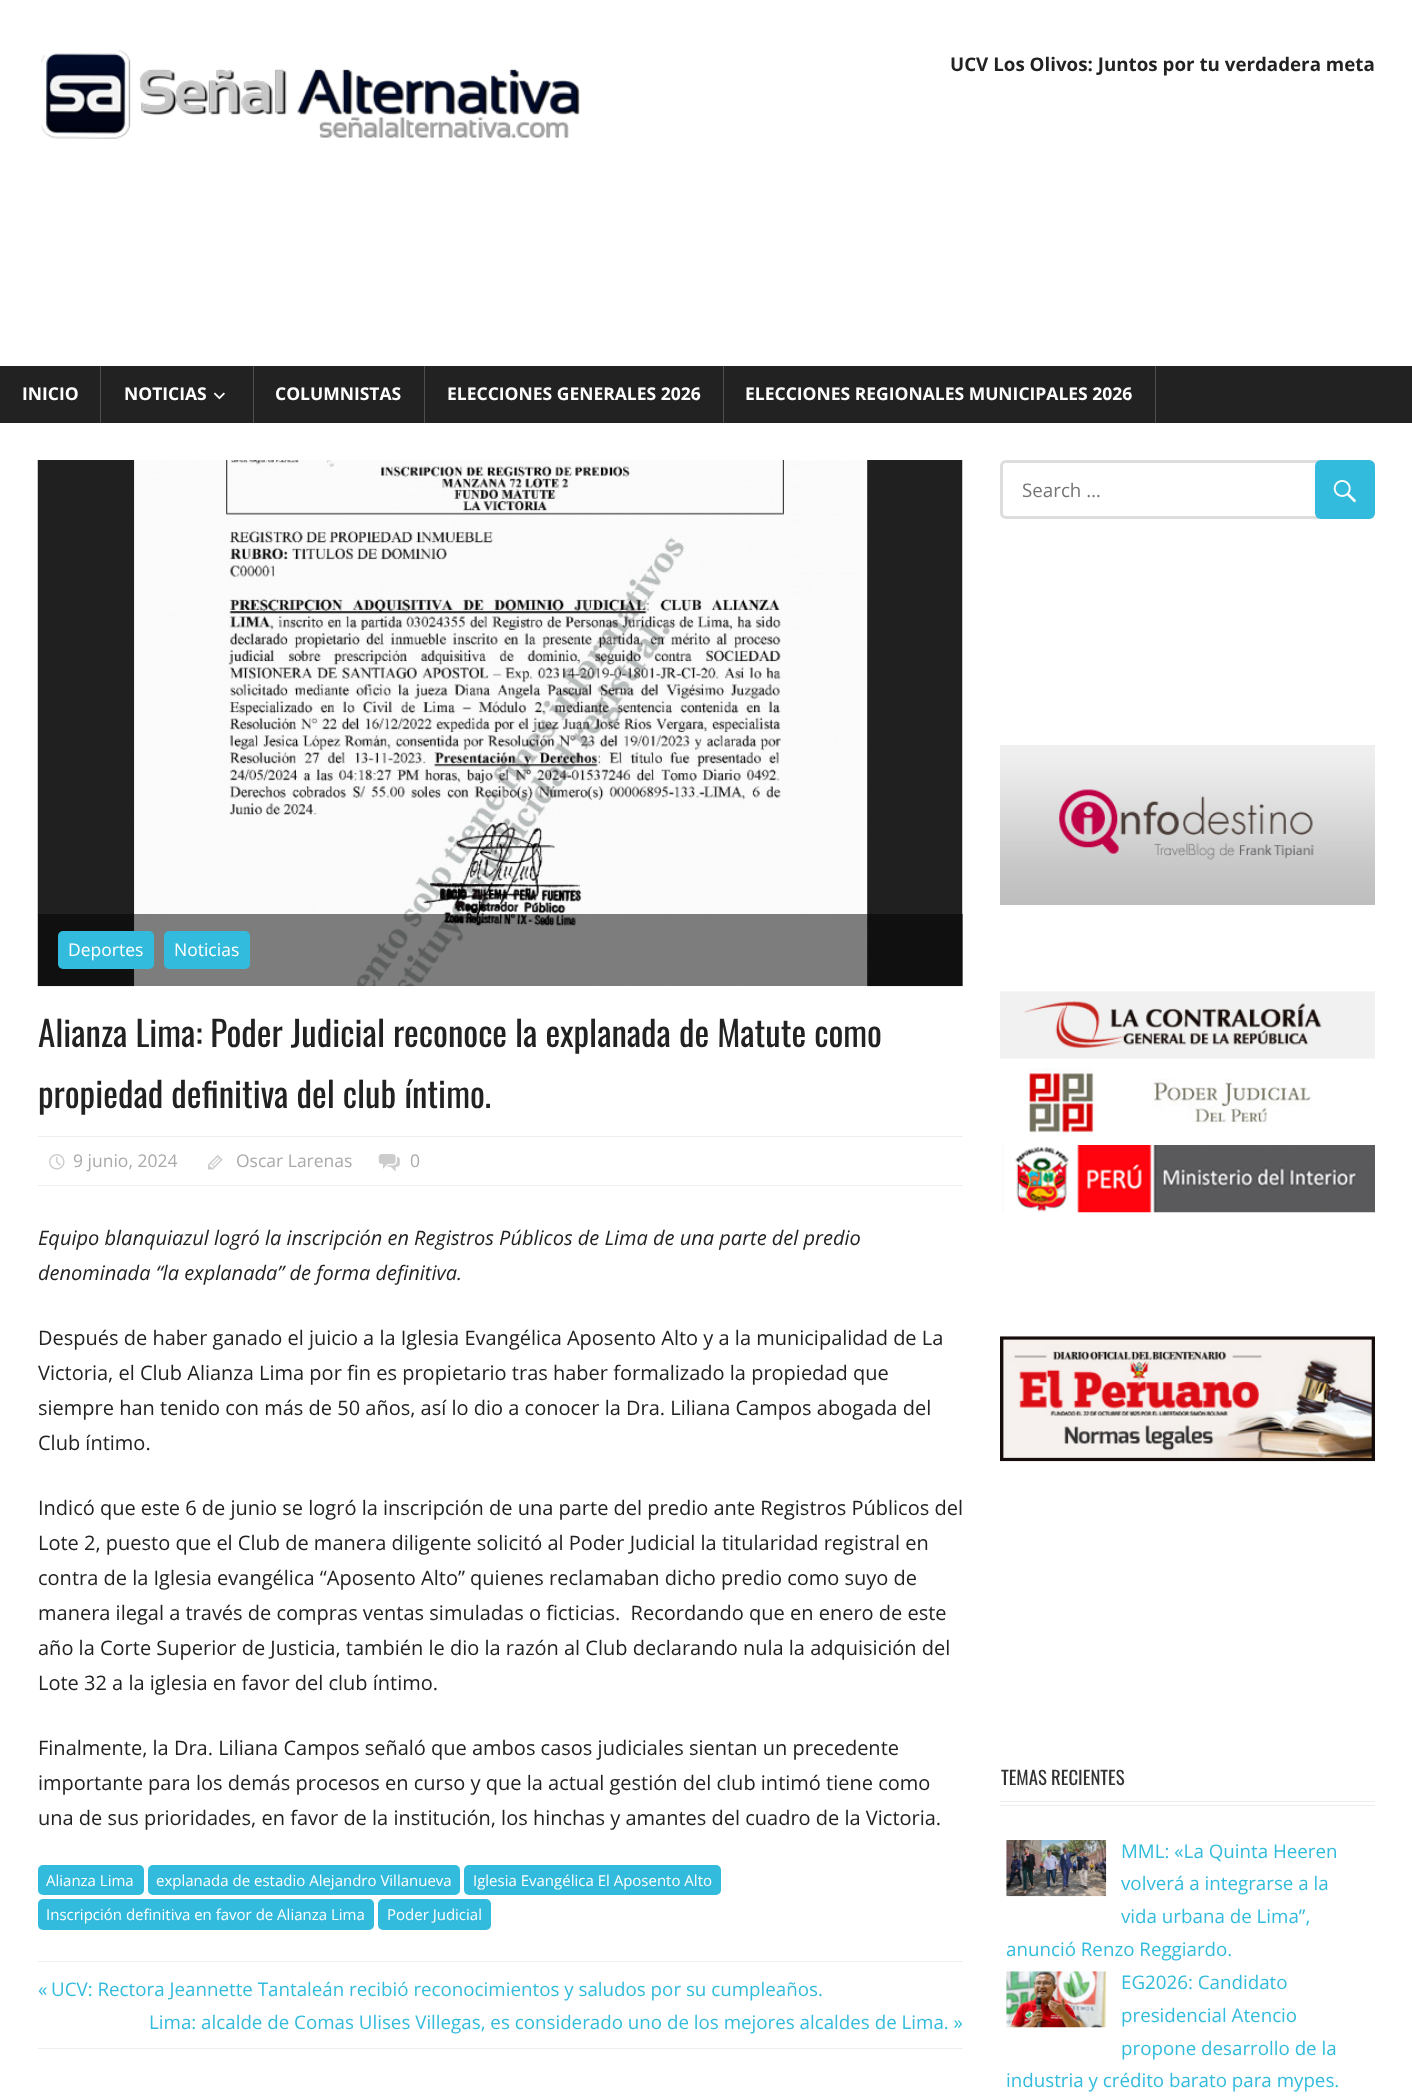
<!DOCTYPE html>
<meta charset="utf-8">
<style>body { margin: 0 } canvas { display: block }</style>
<canvas id="canvas" width="1412" height="2096"></canvas>
<img id="img1" src="images/1.png" hidden>
<img id="img2" src="images/2.png" hidden>
<img id="img3" src="images/3.png" hidden>
<img id="img4" src="images/4.png" hidden>
<img id="img5" src="images/5.png" hidden>
<img id="img6" src="images/6.png" hidden>
<img id="img7" src="images/7.png" hidden>
<img id="img8" src="images/8.png" hidden>
<img id="img9" src="images/9.png" hidden>
<img id="img10" src="images/10.png" hidden>
<img id="img11" src="images/11.png" hidden>
<img id="img12" src="images/12.png" hidden>
<img id="img13" src="images/13.png" hidden>
<img id="img14" src="images/14.png" hidden>
<script>
window.onload = function () {
    const canvas = document.getElementById('canvas');
    const context = canvas.getContext('2d');
    context.miterLimit = 4;
    context.fontKerning = 'normal';

    context.fillStyle = 'rgb(255, 255, 255)';
    context.fillRect(0, 0, 1412, 2096);
    context.drawImage(document.getElementById('img1'), 41, 50, 539, 89);
    context.fillStyle = 'rgb(34, 34, 34)';
    context.fillRect(0, 366, 1412, 57);
    context.fillStyle = 'rgb(78, 78, 78)';
    context.fillRect(100, 366, 1, 57);
    context.fillRect(253, 366, 1, 57);
    context.drawImage(document.getElementById('img2'), 213, 392, 12, 8);
    context.fillRect(424, 366, 1, 57);
    context.fillRect(723, 366, 1, 57);
    context.fillRect(1155, 366, 1, 57);
    context.drawImage(document.getElementById('img3'), 37, 460, 926, 527);
    context.fillStyle = 'rgba(0, 0, 0, 0.5)';
    context.fillRect(38, 914, 925, 72);
    context.fillStyle = 'rgb(51, 187, 221)';
    context.beginPath();
    context.roundRect(58, 931, 96, 38, 5);
    context.fill();
    context.beginPath();
    context.roundRect(164, 931, 86, 38, 5);
    context.fill();
    context.fillStyle = 'rgb(238, 238, 238)';
    context.fillRect(38, 1136, 925, 1);
    context.fillRect(38, 1185, 925, 1);
    context.drawImage(document.getElementById('img4'), 49, 1154, 16, 16);
    context.drawImage(document.getElementById('img5'), 208, 1155, 15, 15);
    context.drawImage(document.getElementById('img6'), 378, 1154, 22, 18);
    context.fillStyle = 'rgb(51, 187, 221)';
    context.beginPath();
    context.roundRect(38, 1865, 106, 30, 5);
    context.fill();
    context.beginPath();
    context.roundRect(148, 1865, 312, 30, 5);
    context.fill();
    context.beginPath();
    context.roundRect(464, 1865, 257, 30, 5);
    context.fill();
    context.beginPath();
    context.roundRect(38, 1899, 336, 31, 5);
    context.fill();
    context.beginPath();
    context.roundRect(378, 1899, 113, 31, 5);
    context.fill();
    context.fillStyle = 'rgb(238, 238, 238)';
    context.fillRect(38, 1961, 925, 1);
    context.fillRect(38, 2048, 925, 1);
    context.beginPath();
    context.roundRect(1001.5, 461.5, 372, 56, 4.5);
    context.strokeStyle = 'rgb(221, 221, 221)';
    context.lineWidth = 3;
    context.stroke();
    context.fillStyle = 'rgb(51, 187, 221)';
    context.beginPath();
    context.roundRect(1315, 460, 60, 59, 6);
    context.fill();
    context.drawImage(document.getElementById('img7'), 1333, 480, 24, 23);
    context.drawImage(document.getElementById('img8'), 1000, 745, 375, 160);
    context.drawImage(document.getElementById('img9'), 1000, 991, 375, 68);
    context.drawImage(document.getElementById('img10'), 1029, 1067, 283, 66);
    context.drawImage(document.getElementById('img11'), 1002, 1145, 373, 68);
    context.drawImage(document.getElementById('img12'), 1000, 1336, 375, 126);
    context.fillStyle = 'rgb(238, 238, 238)';
    context.fillRect(1000, 1805, 375, 1);
    context.fillRect(1000, 1801, 375, 1);
    context.drawImage(document.getElementById('img13'), 1006, 1840, 101, 57);
    context.drawImage(document.getElementById('img14'), 1006, 1971, 101, 57);
    context.font = 'bold 18.75px Open Sans';
    context.fillStyle = 'rgb(34, 34, 34)';
    context.fillText('UCV Los Olivos: Juntos por tu verdadera meta', 950, 71);
    context.font = 'bold 17.5px Open Sans';
    context.fillStyle = 'rgb(255, 255, 255)';
    context.fillText('INICIO', 22, 400);
    context.fillText('NOTICIAS', 124, 400);
    context.fillText('COLUMNISTAS', 275, 400);
    context.fillText('ELECCIONES GENERALES 2026', 447, 400);
    context.fillText('ELECCIONES REGIONALES MUNICIPALES 2026', 745, 400);
    context.font = '17.5px Open Sans';
    context.fillText('Deportes', 68, 956);
    context.fillText('Noticias', 174, 956);
    context.font = '35px Oswald';
    context.fillStyle = 'rgb(34, 34, 34)';
    context.fillText('Alianza Lima: Poder Judicial reconoce la explanada de Matute como', 38, 1047);
    context.fillText('propiedad definitiva del club íntimo.', 38, 1108);
    context.font = '17.5px Open Sans';
    context.fillStyle = 'rgb(170, 170, 170)';
    context.fillText('9 junio, 2024', 73, 1167);
    context.fillText('Oscar Larenas', 236, 1167);
    context.fillText('0', 410, 1167);
    context.font = 'italic 20px Open Sans';
    context.fillStyle = 'rgb(34, 34, 34)';
    context.fillText('Equipo blanquiazul logró la inscripción en Registros Públicos de Lima de una parte del predio', 38, 1245);
    context.fillText('denominada “la explanada” de forma definitiva.', 38, 1280);
    context.font = '20px Open Sans';
    context.fillText('Después de haber ganado el juicio a la Iglesia Evangélica Aposento Alto y a la municipalidad de La', 38, 1345);
    context.fillText('Victoria, el Club Alianza Lima por fin es propietario tras haber formalizado la propiedad que', 38, 1380);
    context.fillText('siempre han tenido con más de 50 años, así lo dio a conocer la Dra. Liliana Campos abogada del', 38, 1415);
    context.fillText('Club íntimo.', 38, 1450);
    context.fillText('Indicó que este 6 de junio se logró la inscripción de una parte del predio ante Registros Públicos del', 38, 1515);
    context.fillText('Lote 2, puesto que el Club de manera diligente solicitó al Poder Judicial la titularidad registral en', 38, 1550);
    context.fillText('contra de la Iglesia evangélica “Aposento Alto” quienes reclamaban dicho predio como suyo de', 38, 1585);
    context.fillText('manera ilegal a través de compras ventas simuladas o ficticias.  Recordando que en enero de este', 38, 1620);
    context.fillText('año la Corte Superior de Justicia, también le dio la razón al Club declarando nula la adquisición del', 38, 1655);
    context.fillText('Lote 32 a la iglesia en favor del club íntimo.', 38, 1690);
    context.fillText('Finalmente, la Dra. Liliana Campos señaló que ambos casos judiciales sientan un precedente', 38, 1755);
    context.fillText('importante para los demás procesos en curso y que la actual gestión del club intimó tiene como', 38, 1790);
    context.fillText('una de sus prioridades, en favor de la institución, los hinchas y amantes del cuadro de la Victoria.', 38, 1825);
    context.font = '15px Open Sans';
    context.fillStyle = 'rgb(255, 255, 255)';
    context.fillText('Alianza Lima', 46, 1886);
    context.fillText('explanada de estadio Alejandro Villanueva', 156, 1886);
    context.fillText('Iglesia Evangélica El Aposento Alto', 473, 1886);
    context.fillText('Inscripción definitiva en favor de Alianza Lima', 46, 1920);
    context.fillText('Poder Judicial', 387, 1920);
    context.font = '18.75px Open Sans';
    context.fillStyle = 'rgb(51, 187, 221)';
    context.fillText('«', 38, 1996);
    context.fillText('UCV: Rectora Jeannette Tantaleán recibió reconocimientos y saludos por su cumpleaños.', 51, 1996);
    context.fillText('Lima: alcalde de Comas Ulises Villegas, es considerado uno de los mejores alcaldes de Lima. »', 149, 2029);
    context.fillStyle = 'rgb(117, 117, 117)';
    context.fillText('Search …', 1022, 497);
    context.font = '18.75px Oswald';
    context.fillStyle = 'rgb(51, 51, 51)';
    context.fillText('TEMAS RECIENTES', 1001, 1785);
    context.font = '18.75px Open Sans';
    context.fillStyle = 'rgb(51, 187, 221)';
    context.fillText('MML: «La Quinta Heeren', 1121, 1858);
    context.fillText('volverá a integrarse a la', 1121, 1890);
    context.fillText('vida urbana de Lima”,', 1121, 1923);
    context.fillText('anunció Renzo Reggiardo.', 1006, 1956);
    context.fillText('EG2026: Candidato', 1121, 1989);
    context.fillText('presidencial Atencio', 1121, 2022);
    context.fillText('propone desarrollo de la', 1121, 2055);
    context.fillText('industria y crédito barato para mypes.', 1006, 2087);
};
</script>
